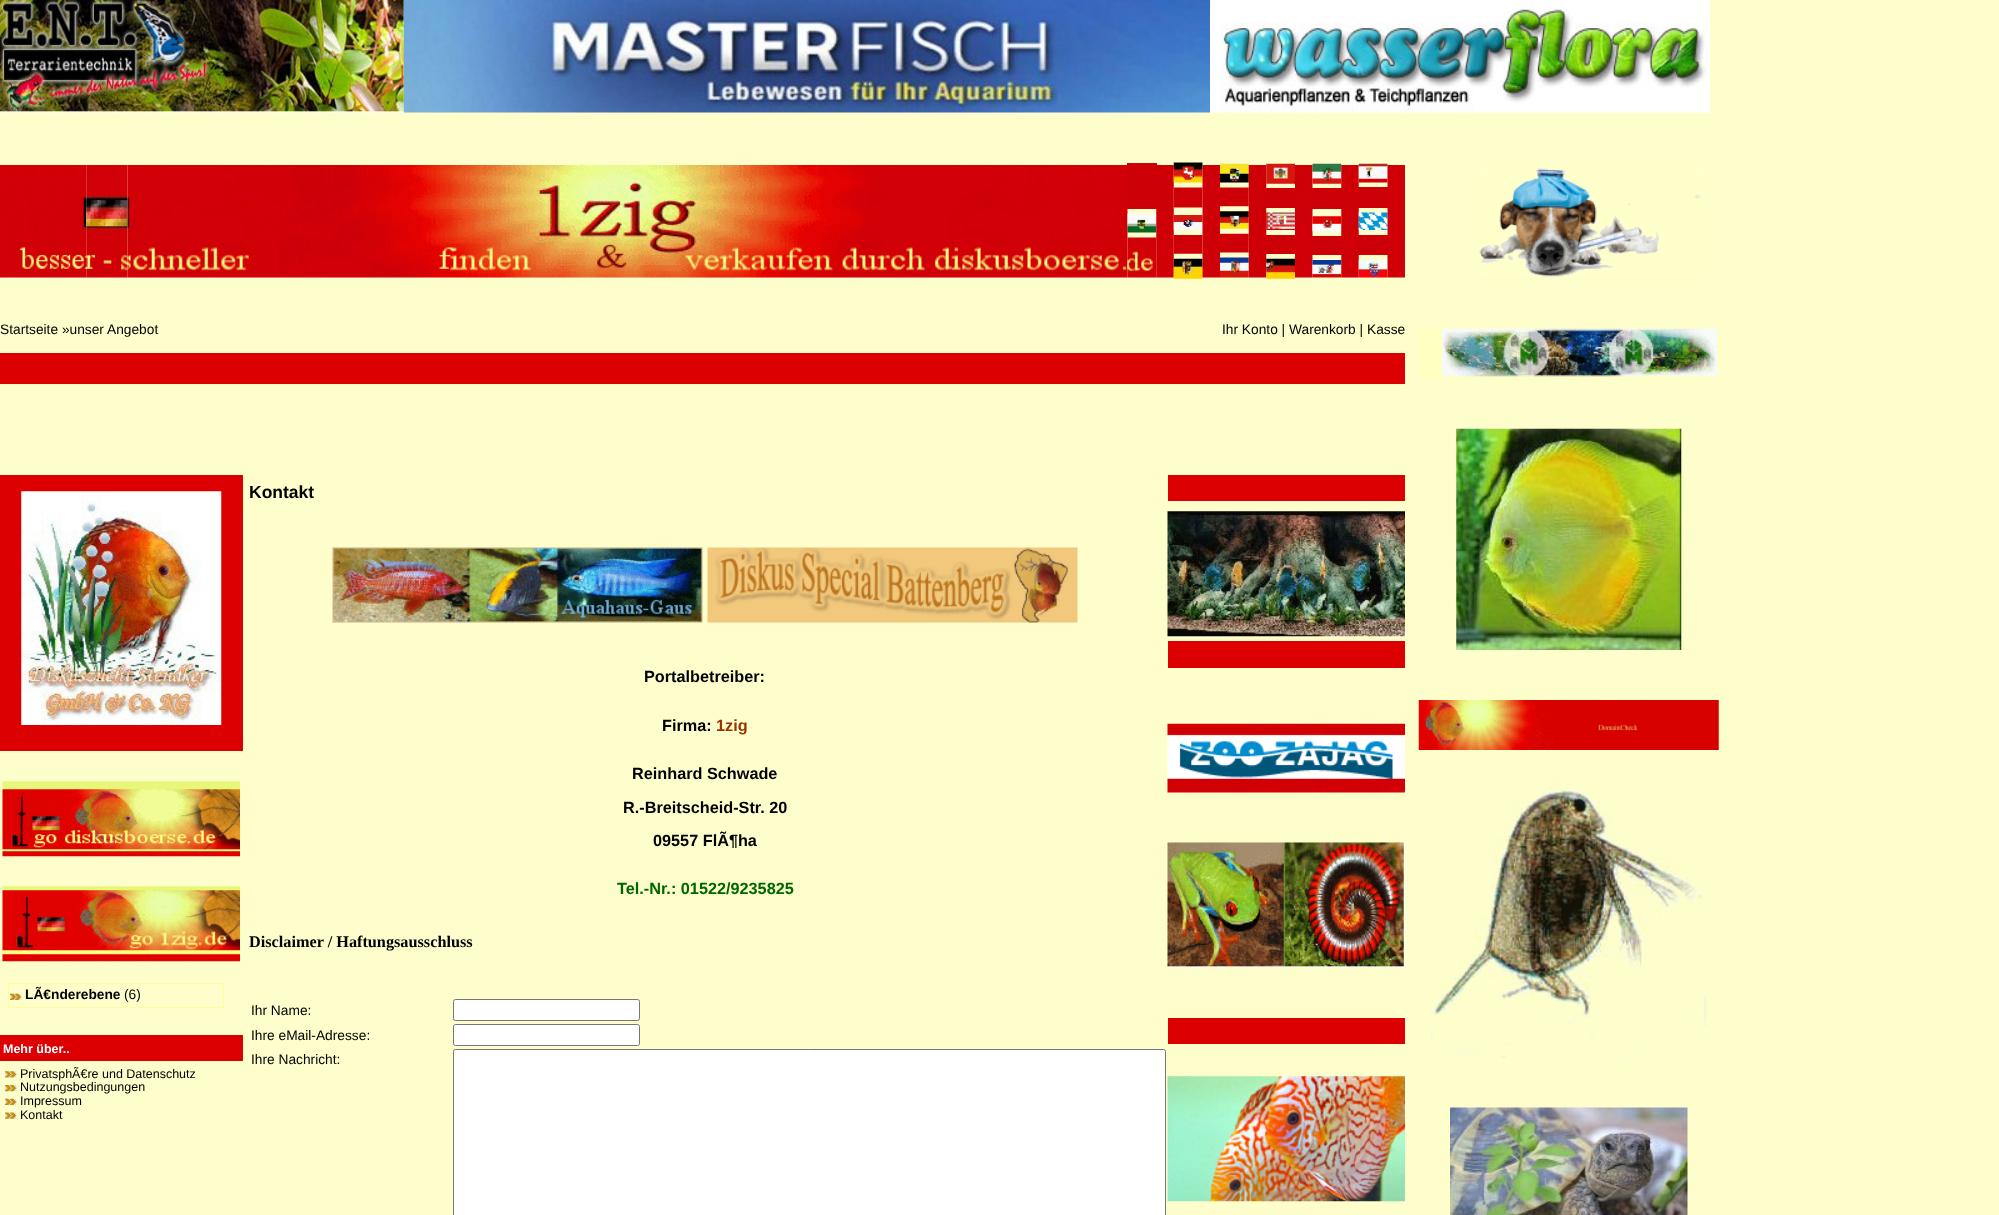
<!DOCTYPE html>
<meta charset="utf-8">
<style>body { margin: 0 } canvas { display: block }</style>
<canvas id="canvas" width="1999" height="1215"></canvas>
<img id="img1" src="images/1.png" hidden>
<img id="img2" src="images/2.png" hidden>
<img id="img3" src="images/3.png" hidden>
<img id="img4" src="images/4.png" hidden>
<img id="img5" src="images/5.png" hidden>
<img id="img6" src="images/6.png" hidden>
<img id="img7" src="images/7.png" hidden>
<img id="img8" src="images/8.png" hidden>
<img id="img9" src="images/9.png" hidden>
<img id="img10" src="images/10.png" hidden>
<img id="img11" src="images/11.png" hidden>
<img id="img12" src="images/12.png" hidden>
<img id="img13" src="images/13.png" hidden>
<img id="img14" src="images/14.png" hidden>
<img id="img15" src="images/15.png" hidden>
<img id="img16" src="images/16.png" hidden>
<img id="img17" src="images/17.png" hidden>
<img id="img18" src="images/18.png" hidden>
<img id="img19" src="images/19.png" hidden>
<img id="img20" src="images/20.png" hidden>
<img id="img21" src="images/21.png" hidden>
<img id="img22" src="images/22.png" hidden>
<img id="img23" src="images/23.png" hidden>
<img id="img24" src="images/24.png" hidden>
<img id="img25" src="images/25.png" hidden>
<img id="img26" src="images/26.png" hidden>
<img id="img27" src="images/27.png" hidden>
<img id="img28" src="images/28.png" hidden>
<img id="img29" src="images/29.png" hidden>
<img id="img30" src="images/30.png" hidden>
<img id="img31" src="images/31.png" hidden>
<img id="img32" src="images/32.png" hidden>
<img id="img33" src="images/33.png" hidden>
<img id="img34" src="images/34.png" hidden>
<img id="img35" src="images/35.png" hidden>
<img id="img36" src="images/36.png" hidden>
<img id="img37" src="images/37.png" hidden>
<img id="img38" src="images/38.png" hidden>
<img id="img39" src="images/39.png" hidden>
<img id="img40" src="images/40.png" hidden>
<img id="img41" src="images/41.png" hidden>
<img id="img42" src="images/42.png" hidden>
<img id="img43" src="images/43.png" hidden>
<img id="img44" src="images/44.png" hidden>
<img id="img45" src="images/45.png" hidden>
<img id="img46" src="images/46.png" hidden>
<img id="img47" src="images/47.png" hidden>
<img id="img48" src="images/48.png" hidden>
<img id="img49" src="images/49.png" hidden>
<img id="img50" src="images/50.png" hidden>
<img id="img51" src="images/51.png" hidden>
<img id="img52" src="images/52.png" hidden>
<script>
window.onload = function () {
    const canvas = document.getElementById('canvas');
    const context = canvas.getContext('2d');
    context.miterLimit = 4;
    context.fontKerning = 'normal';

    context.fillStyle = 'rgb(254, 253, 204)';
    context.fillRect(0, 0, 1999, 1215);
    context.drawImage(document.getElementById('img1'), 0, 0, 404, 113);
    context.drawImage(document.getElementById('img2'), 403, 0, 807, 113);
    context.drawImage(document.getElementById('img3'), 1210, 0, 500, 113);
    context.drawImage(document.getElementById('img4'), 0, 165, 87, 113);
    context.drawImage(document.getElementById('img5'), 86, 165, 42, 113);
    context.drawImage(document.getElementById('img6'), 127, 165, 1001, 113);
    context.fillStyle = 'rgb(205, 0, 7)';
    context.fillRect(1127, 163, 30, 46);
    context.drawImage(document.getElementById('img7'), 1127, 213, 30, 20);
    context.drawImage(document.getElementById('img8'), 1127, 237, 30, 41);
    context.drawImage(document.getElementById('img9'), 1156, 165, 18, 113);
    context.drawImage(document.getElementById('img10'), 1173, 162, 30, 21);
    context.drawImage(document.getElementById('img11'), 1173, 187, 30, 21);
    context.drawImage(document.getElementById('img12'), 1173, 215, 30, 15);
    context.drawImage(document.getElementById('img13'), 1173, 235, 30, 19);
    context.drawImage(document.getElementById('img14'), 1173, 258, 30, 21);
    context.drawImage(document.getElementById('img15'), 1202, 165, 18, 113);
    context.drawImage(document.getElementById('img16'), 1220, 163, 29, 20);
    context.drawImage(document.getElementById('img17'), 1220, 187, 29, 20);
    context.drawImage(document.getElementById('img18'), 1220, 211, 29, 18);
    context.drawImage(document.getElementById('img19'), 1220, 233, 29, 20);
    context.drawImage(document.getElementById('img20'), 1220, 257, 29, 21);
    context.drawImage(document.getElementById('img21'), 1248, 165, 19, 113);
    context.drawImage(document.getElementById('img22'), 1266, 163, 29, 21);
    context.fillRect(1266, 188, 29, 20);
    context.drawImage(document.getElementById('img23'), 1266, 212, 29, 18);
    context.fillRect(1266, 235, 29, 19);
    context.drawImage(document.getElementById('img24'), 1266, 258, 29, 21);
    context.drawImage(document.getElementById('img25'), 1295, 165, 18, 113);
    context.drawImage(document.getElementById('img26'), 1312, 163, 30, 21);
    context.fillStyle = 'rgb(206, 0, 7)';
    context.fillRect(1312, 188, 30, 21);
    context.drawImage(document.getElementById('img27'), 1312, 216, 30, 16);
    context.fillRect(1312, 236, 30, 19);
    context.drawImage(document.getElementById('img28'), 1312, 260, 30, 18);
    context.drawImage(document.getElementById('img29'), 1341, 165, 18, 113);
    context.drawImage(document.getElementById('img30'), 1358, 163, 30, 20);
    context.fillStyle = 'rgb(205, 0, 7)';
    context.fillRect(1358, 187, 30, 21);
    context.drawImage(document.getElementById('img31'), 1358, 212, 30, 18);
    context.fillRect(1358, 235, 30, 20);
    context.drawImage(document.getElementById('img32'), 1358, 260, 30, 18);
    context.drawImage(document.getElementById('img33'), 1387, 165, 18, 113);
    context.drawImage(document.getElementById('img34'), 1479, 168, 223, 109);
    context.fillStyle = 'rgb(220, 0, 2)';
    context.fillRect(0, 353, 1405, 31);
    context.drawImage(document.getElementById('img35'), 1420, 328, 300, 51);
    context.fillRect(0, 475, 243, 276);
    context.drawImage(document.getElementById('img36'), 21, 491, 201, 234);
    context.drawImage(document.getElementById('img37'), 2, 781, 238, 76);
    context.drawImage(document.getElementById('img38'), 2, 886, 238, 76);
    context.strokeStyle = 'rgb(255, 255, 153)';
    context.strokeRect(8.5, 983.5, 215, 24);
    context.drawImage(document.getElementById('img39'), 10, 993, 12, 7);
    context.fillRect(0, 1035, 243, 26);
    context.drawImage(document.getElementById('img40'), 5, 1071, 12, 7);
    context.drawImage(document.getElementById('img41'), 5, 1085, 12, 7);
    context.drawImage(document.getElementById('img39'), 5, 1098, 12, 7);
    context.drawImage(document.getElementById('img42'), 5, 1112, 12, 7);
    context.drawImage(document.getElementById('img43'), 332, 547, 371, 76);
    context.drawImage(document.getElementById('img44'), 707, 547, 371, 76);
    context.fillStyle = 'rgb(255, 255, 255)';
    context.beginPath();
    context.roundRect(453.5, 999.5, 186, 21, 2);
    context.fill();
    context.strokeStyle = 'rgb(118, 118, 118)';
    context.stroke();
    context.beginPath();
    context.roundRect(453.5, 1024.5, 186, 21, 2);
    context.fill();
    context.stroke();
    context.beginPath();
    context.roundRect(453.5, 1049.5, 712, 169, 2);
    context.fill();
    context.stroke();
    context.fillStyle = 'rgb(220, 0, 2)';
    context.fillRect(1168, 475, 237, 26);
    context.drawImage(document.getElementById('img45'), 1167, 511, 238, 126);
    context.fillRect(1168, 641, 237, 27);
    context.drawImage(document.getElementById('img46'), 1167, 723, 238, 70);
    context.drawImage(document.getElementById('img47'), 1167, 842, 238, 126);
    context.fillRect(1168, 1018, 237, 26);
    context.drawImage(document.getElementById('img48'), 1167, 1076, 238, 126);
    context.drawImage(document.getElementById('img49'), 1456, 428, 226, 222);
    context.drawImage(document.getElementById('img50'), 1418, 700, 301, 50);
    context.drawImage(document.getElementById('img51'), 1431, 777, 276, 281);
    context.drawImage(document.getElementById('img52'), 1450, 1107, 238, 108);
    context.font = '13.75px Liberation Sans';
    context.fillStyle = 'rgb(0, 0, 0)';
    context.fillText('Startseite »unser Angebot', 0, 334);
    context.fillText('Ihr Konto | Warenkorb | Kasse', 1222, 334);
    context.font = 'bold 13.75px Liberation Sans';
    context.fillText('LÃ€nderebene', 25, 999);
    context.font = '13.75px Liberation Sans';
    context.fillText('(6)', 124, 999);
    context.font = 'bold 12.5px Liberation Sans';
    context.fillStyle = 'rgb(255, 255, 255)';
    context.fillText('Mehr über..', 3, 1053);
    context.font = '12.5px Liberation Sans';
    context.fillStyle = 'rgb(0, 0, 0)';
    context.fillText('PrivatsphÃ€re und Datenschutz', 20, 1078);
    context.fillText('Nutzungsbedingungen', 20, 1091);
    context.fillText('Impressum', 20, 1105);
    context.fillText('Kontakt', 20, 1119);
    context.font = 'bold 17.5px Liberation Sans';
    context.fillText('Kontakt', 249, 498);
    context.font = 'bold 16.25px Liberation Sans';
    context.fillText('Portalbetreiber:', 644, 682);
    context.fillText('Firma:', 662, 731);
    context.fillStyle = 'rgb(153, 51, 0)';
    context.fillText('1zig', 716, 731);
    context.fillStyle = 'rgb(0, 0, 0)';
    context.fillText('Reinhard Schwade', 632, 779);
    context.fillText('R.-Breitscheid-Str. 20', 623, 813);
    context.fillText('09557 FlÃ¶ha', 653, 846);
    context.fillStyle = 'rgb(0, 102, 0)';
    context.fillText('Tel.-Nr.: 01522/9235825', 617, 894);
    context.font = 'bold 16.25px Liberation Serif';
    context.fillStyle = 'rgb(0, 0, 0)';
    context.fillText('Disclaimer / Haftungsausschluss', 249, 947);
    context.font = '13.75px Liberation Sans';
    context.fillText('Ihr Name:', 251, 1015);
    context.fillText('Ihre eMail-Adresse:', 251, 1040);
    context.fillText('Ihre Nachricht:', 251, 1064);
};
</script>
